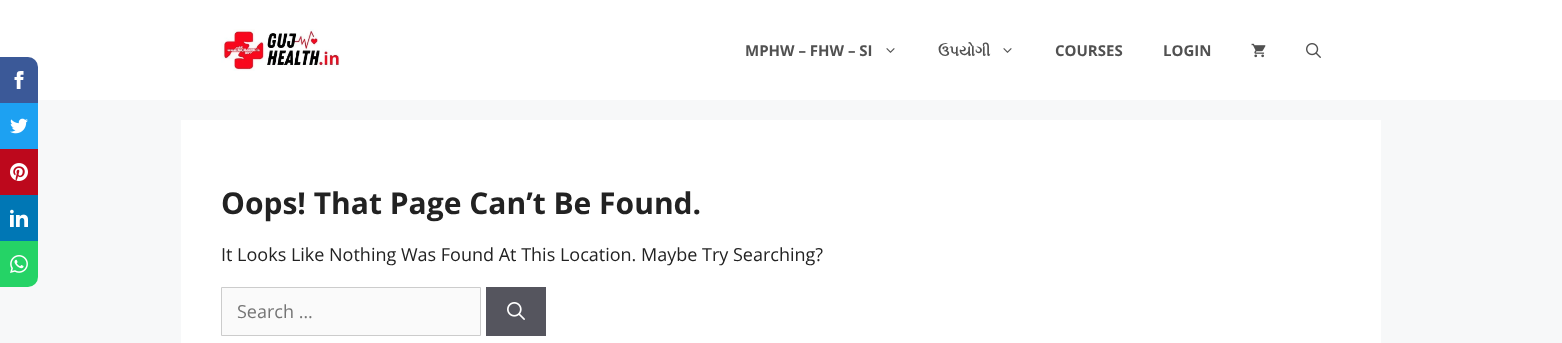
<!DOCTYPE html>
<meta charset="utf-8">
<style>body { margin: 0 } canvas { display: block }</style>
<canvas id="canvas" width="1562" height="343"></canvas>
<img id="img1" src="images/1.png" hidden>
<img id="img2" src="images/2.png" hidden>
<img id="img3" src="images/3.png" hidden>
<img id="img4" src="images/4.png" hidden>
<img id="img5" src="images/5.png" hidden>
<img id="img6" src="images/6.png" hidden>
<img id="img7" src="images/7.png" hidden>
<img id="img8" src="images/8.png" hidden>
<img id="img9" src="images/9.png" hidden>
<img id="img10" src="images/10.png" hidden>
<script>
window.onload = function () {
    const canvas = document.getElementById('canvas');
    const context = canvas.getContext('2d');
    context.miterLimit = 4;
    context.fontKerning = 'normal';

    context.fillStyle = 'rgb(247, 248, 249)';
    context.fillRect(0, 0, 1562, 343);
    context.fillStyle = 'rgb(255, 255, 255)';
    context.fillRect(0, 0, 1562, 100);
    context.drawImage(document.getElementById('img1'), 221, 29, 119, 42);
    context.drawImage(document.getElementById('img2'), 886, 48, 9, 5);
    context.drawImage(document.getElementById('img2'), 1003, 48, 9, 5);
    context.drawImage(document.getElementById('img3'), 1251, 43, 15, 15);
    context.drawImage(document.getElementById('img4'), 1306, 43, 15, 15);
    context.fillStyle = 'rgb(59, 89, 152)';
    context.beginPath();
    context.roundRect(0, 57, 38, 46, [0, 10, 0, 0]);
    context.fill();
    context.drawImage(document.getElementById('img5'), 14, 71, 10, 18);
    context.fillStyle = 'rgb(29, 161, 242)';
    context.fillRect(0, 103, 38, 46);
    context.drawImage(document.getElementById('img6'), 10, 118, 18, 16);
    context.fillStyle = 'rgb(189, 8, 28)';
    context.fillRect(0, 149, 38, 46);
    context.drawImage(document.getElementById('img7'), 10, 163, 18, 18);
    context.fillStyle = 'rgb(0, 119, 181)';
    context.fillRect(0, 195, 38, 46);
    context.drawImage(document.getElementById('img8'), 10, 209, 18, 18);
    context.fillStyle = 'rgb(37, 211, 102)';
    context.beginPath();
    context.roundRect(0, 241, 38, 46, [0, 0, 10, 0]);
    context.fill();
    context.drawImage(document.getElementById('img9'), 10, 255, 18, 18);
    context.fillStyle = 'rgb(255, 255, 255)';
    context.fillRect(181, 120, 1200, 223);
    context.fillStyle = 'rgb(250, 250, 250)';
    context.beginPath();
    context.rect(221.5, 287.5, 259, 48);
    context.fill();
    context.strokeStyle = 'rgb(204, 204, 204)';
    context.stroke();
    context.fillStyle = 'rgb(85, 85, 94)';
    context.fillRect(486, 287, 60, 49);
    context.drawImage(document.getElementById('img10'), 507, 302, 18, 18);
    context.font = 'bold 15px Open Sans';
    context.fillStyle = 'rgb(81, 81, 81)';
    context.fillText('MPHW – FHW – SI', 745, 56);
    context.font = 'bold 15px FreeSerif';
    context.fillText('ઉપયોગી', 938, 56);
    context.font = 'bold 15px Open Sans';
    context.fillText('COURSES', 1055, 56);
    context.fillText('LOGIN', 1163, 56);
    context.font = 'bold 30px Open Sans';
    context.fillStyle = 'rgb(34, 34, 34)';
    context.fillText('Oops! That Page Can’t Be Found.', 221, 214);
    context.font = '18px Open Sans';
    context.fillText('It Looks Like Nothing Was Found At This Location. Maybe Try Searching?', 221, 261);
    context.fillStyle = 'rgb(117, 117, 117)';
    context.fillText('Search …', 237, 318);
};
</script>
